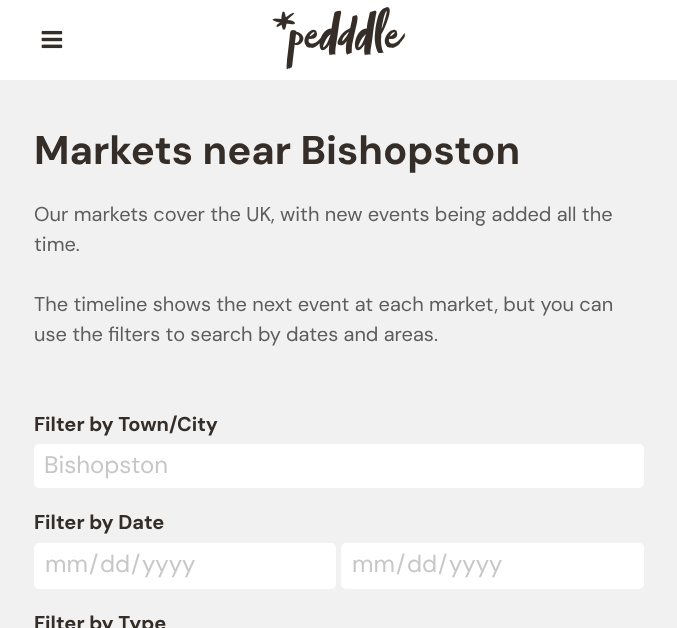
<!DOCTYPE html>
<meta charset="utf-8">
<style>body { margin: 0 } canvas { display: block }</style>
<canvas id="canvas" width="677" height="628"></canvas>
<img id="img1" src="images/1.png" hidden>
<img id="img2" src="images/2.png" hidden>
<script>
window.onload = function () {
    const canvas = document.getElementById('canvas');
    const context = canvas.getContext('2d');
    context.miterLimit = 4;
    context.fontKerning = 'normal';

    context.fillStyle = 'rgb(241, 241, 241)';
    context.fillRect(0, 0, 677, 628);
    context.fillStyle = 'rgb(255, 255, 255)';
    context.fillRect(0, 0, 677, 80);
    context.drawImage(document.getElementById('img1'), 41, 30, 22, 19);
    context.drawImage(document.getElementById('img2'), 272, 7, 133, 63);
    context.beginPath();
    context.roundRect(34, 444, 610, 44, 5);
    context.fill();
    context.beginPath();
    context.roundRect(34, 543, 302, 46, 5);
    context.fill();
    context.beginPath();
    context.roundRect(341, 543, 303, 46, 5);
    context.fill();
    context.font = 'bold 40px DM Sans';
    context.fillStyle = 'rgb(53, 45, 39)';
    context.fillText('Markets near Bishopston', 34, 164);
    context.font = '20px DM Sans';
    context.fillStyle = 'rgb(93, 93, 93)';
    context.fillText('Our markets cover the UK, with new events being added all the', 34, 221);
    context.fillText('time.', 34, 251);
    context.fillText('The timeline shows the next event at each market, but you can', 34, 311);
    context.fillText('use the filters to search by dates and areas.', 34, 341);
    context.font = 'bold 20px DM Sans';
    context.fillStyle = 'rgb(53, 45, 39)';
    context.fillText('Filter by Town/City', 34, 431);
    context.font = '24px DM Sans';
    context.fillStyle = 'rgb(199, 199, 199)';
    context.fillText('Bishopston', 44, 473);
    context.font = 'bold 20px DM Sans';
    context.fillStyle = 'rgb(53, 45, 39)';
    context.fillText('Filter by Date', 34, 529);
    context.font = '24px DM Sans';
    context.fillStyle = 'rgb(199, 199, 199)';
    context.fillText('mm', 45, 572);
    context.fillText('/', 89, 572);
    context.fillText('dd', 100, 572);
    context.fillText('/', 131, 572);
    context.fillText('yyyy', 142, 572);
    context.fillText('mm', 352, 572);
    context.fillText('/', 396, 572);
    context.fillText('dd', 407, 572);
    context.fillText('/', 438, 572);
    context.fillText('yyyy', 449, 572);
    context.font = 'bold 20px DM Sans';
    context.fillStyle = 'rgb(53, 45, 39)';
    context.fillText('Filter by Type', 34, 630);
};
</script>
